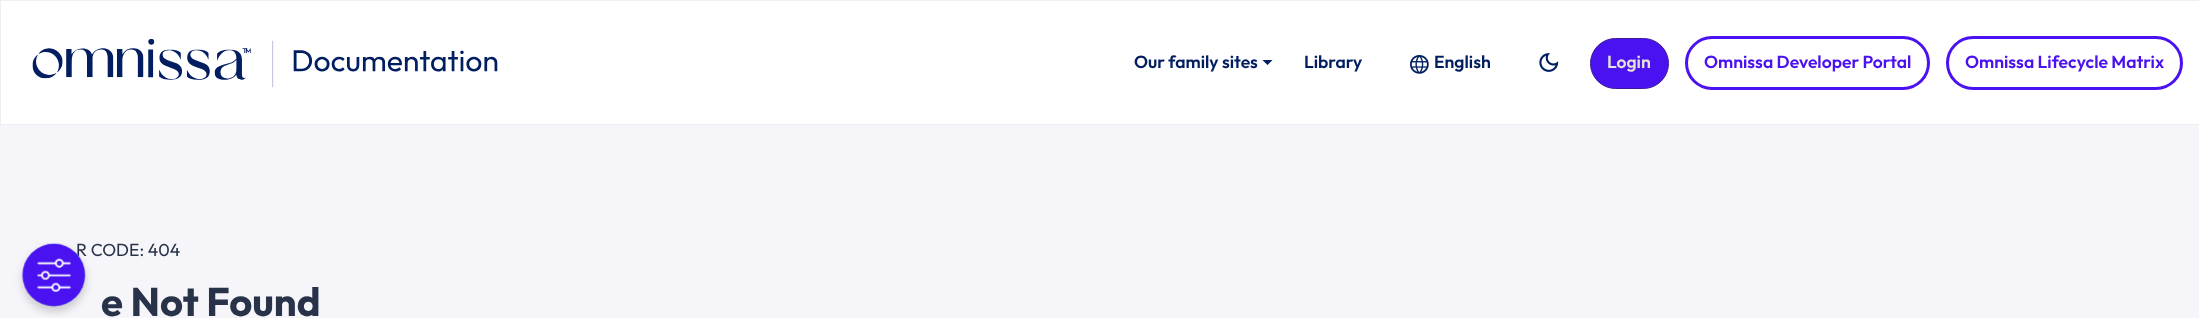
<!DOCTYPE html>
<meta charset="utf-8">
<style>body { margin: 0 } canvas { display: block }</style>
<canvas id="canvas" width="2199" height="318"></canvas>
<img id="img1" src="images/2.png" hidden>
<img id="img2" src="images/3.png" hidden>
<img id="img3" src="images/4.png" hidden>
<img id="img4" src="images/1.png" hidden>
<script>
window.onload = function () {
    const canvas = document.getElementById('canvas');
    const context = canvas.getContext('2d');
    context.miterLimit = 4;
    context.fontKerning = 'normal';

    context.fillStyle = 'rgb(255, 255, 255)';
    context.fillRect(0, 0, 2199, 318);
    context.fillStyle = 'rgb(246, 245, 250)';
    context.fillRect(0, 125, 2199, 193);
    context.fillStyle = 'rgba(0, 0, 0, 0.2)';
    context.filter = 'blur(5px)';
    context.beginPath();
    context.roundRect(23, 249, 62, 62, 31);
    context.fill();
    context.filter = 'none';
    context.strokeStyle = 'rgb(239, 239, 239)';
    context.strokeRect(0.5, 0.5, 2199, 124);
    context.drawImage(document.getElementById('img1'), 32, 39, 466, 49);
    context.fillStyle = 'rgb(0, 30, 96)';
    context.beginPath();
    context.moveTo(1262.5, 60);
    context.lineTo(1272.5, 60);
    context.lineTo(1267.5, 65);
    context.closePath();
    context.fill();
    context.drawImage(document.getElementById('img2'), 1410, 55, 19, 19);
    context.drawImage(document.getElementById('img3'), 1539, 53, 20, 19);
    context.fillStyle = 'rgb(74, 18, 240)';
    context.beginPath();
    context.roundRect(1590.5, 38.5, 78, 50, 25);
    context.fill();
    context.strokeStyle = 'rgb(59, 27, 152)';
    context.stroke();
    context.beginPath();
    context.roundRect(1686.5, 37.5, 242, 51, 25.5);
    context.strokeStyle = 'rgb(74, 18, 240)';
    context.lineWidth = 3;
    context.stroke();
    context.beginPath();
    context.roundRect(1947.5, 37.5, 234, 51, 25.5);
    context.stroke();
    context.font = '600 17.5px Outfit';
    context.fillStyle = 'rgb(0, 30, 96)';
    context.fillText('Our family sites', 1134, 68);
    context.fillText('Library', 1304, 68);
    context.fillText('English', 1434, 68);
    context.fillStyle = 'rgb(229, 224, 216)';
    context.fillText('Login', 1607, 68);
    context.fillStyle = 'rgb(74, 18, 240)';
    context.fillText('Omnissa Developer Portal', 1704, 68);
    context.fillText('Omnissa Lifecycle Matrix', 1965, 68);
    context.font = '100 17.5px Outfit';
    context.fillStyle = 'rgb(40, 51, 74)';
    context.fillText('R CODE: 404', 76, 256);
    context.fillStyle = 'rgb(106, 170, 228)';
    context.beginPath();
    context.arc(54, 275, 31, 0, 2 * Math.PI);
    context.fill();
    context.drawImage(document.getElementById('img4'), 22, 243, 64, 64);
    context.font = 'bold 40px Outfit';
    context.fillStyle = 'rgb(40, 51, 74)';
    context.fillText('e Not Found', 101, 316);
};
</script>
